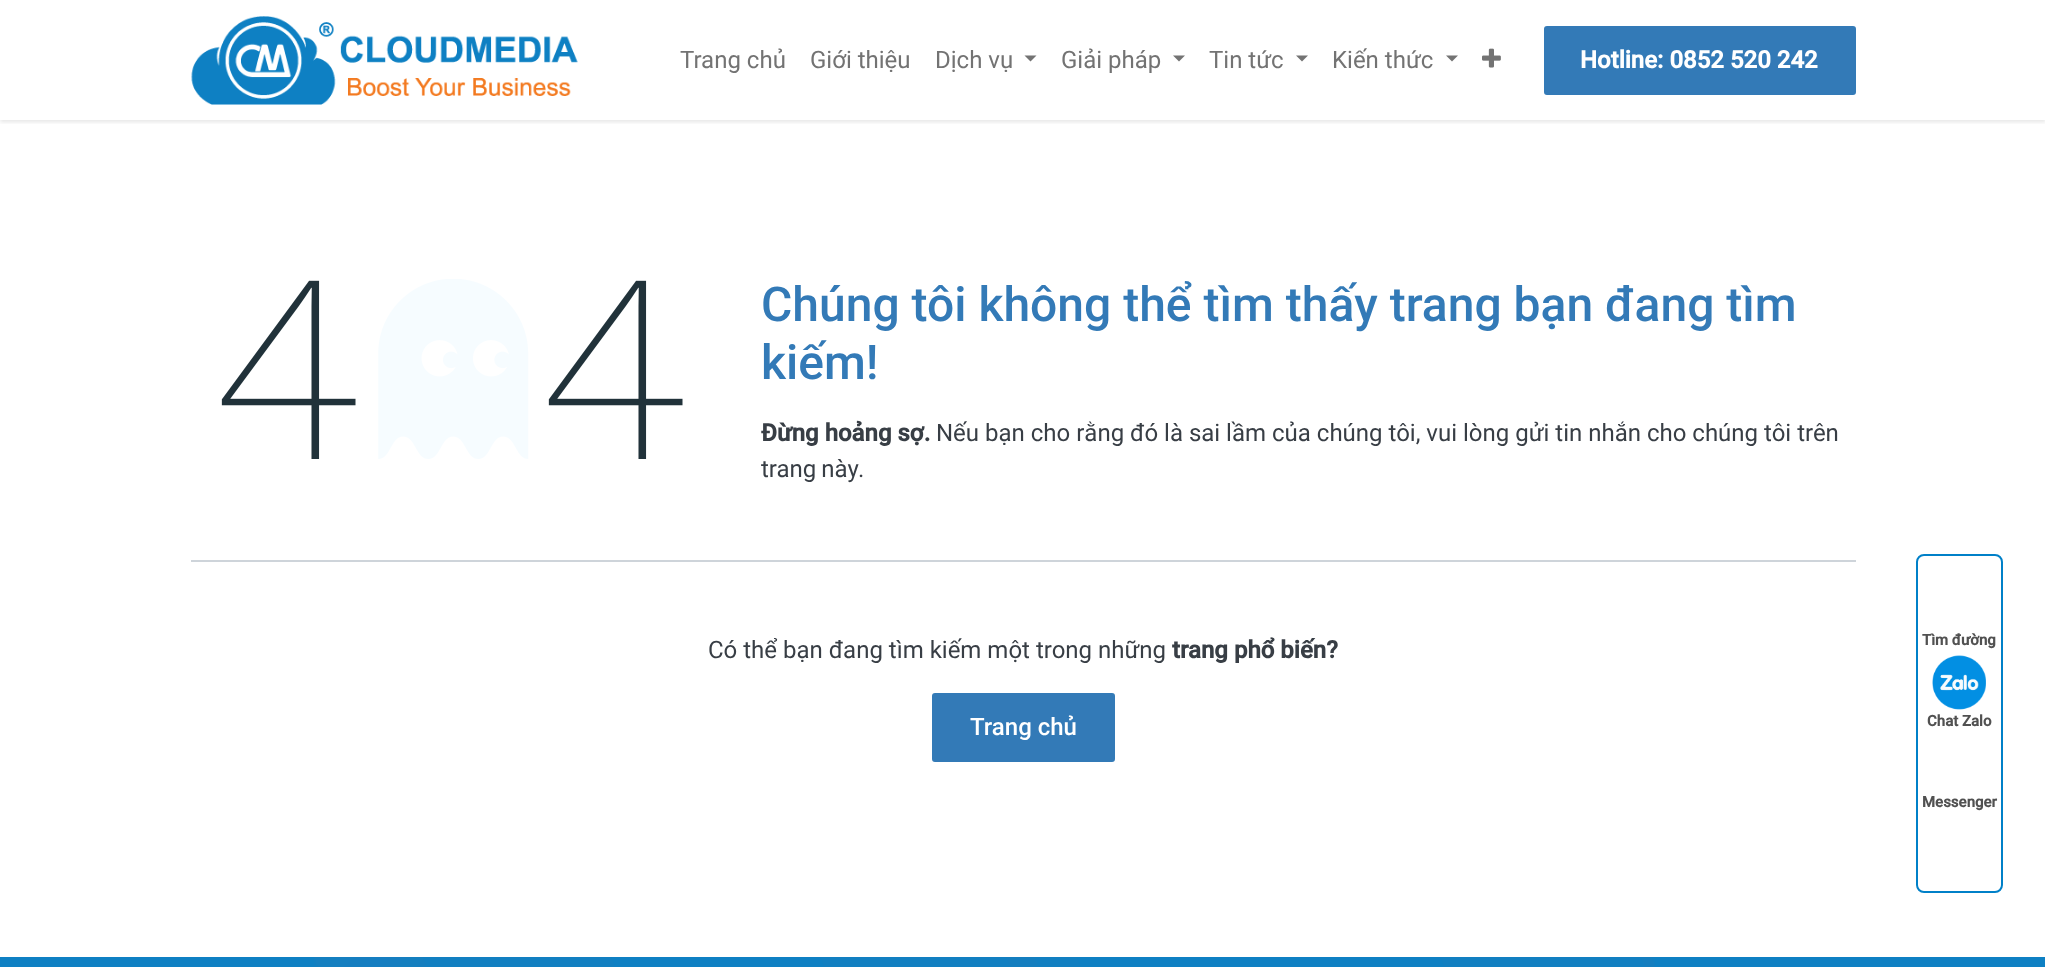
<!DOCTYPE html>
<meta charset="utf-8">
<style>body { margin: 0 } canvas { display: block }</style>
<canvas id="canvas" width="2045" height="967"></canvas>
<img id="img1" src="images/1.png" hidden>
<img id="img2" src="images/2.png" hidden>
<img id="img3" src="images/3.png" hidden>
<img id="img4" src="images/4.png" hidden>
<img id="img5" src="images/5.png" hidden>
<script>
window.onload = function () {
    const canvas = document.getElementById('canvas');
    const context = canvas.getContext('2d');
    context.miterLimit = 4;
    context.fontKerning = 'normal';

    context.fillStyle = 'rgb(255, 255, 255)';
    context.fillRect(0, 0, 2045, 967);
    context.save();
    context.beginPath();
    context.rect(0, 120, 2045, 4);
    context.clip();
    context.fillStyle = 'rgba(0, 0, 0, 0.1)';
    context.filter = 'blur(2px)';
    context.beginPath();
    context.rect(0, 2, 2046, 120);
    context.fill();
    context.filter = 'none';
    context.restore();
    context.drawImage(document.getElementById('img1'), 191, 16, 387, 89);
    context.fillStyle = 'rgb(115, 115, 115)';
    context.beginPath();
    context.moveTo(1024.5, 55.5);
    context.lineTo(1036.5, 55.5);
    context.lineTo(1030.5, 61.5);
    context.closePath();
    context.fill();
    context.beginPath();
    context.moveTo(1173, 55.5);
    context.lineTo(1185, 55.5);
    context.lineTo(1179, 61.5);
    context.closePath();
    context.fill();
    context.beginPath();
    context.moveTo(1296, 55.5);
    context.lineTo(1308, 55.5);
    context.lineTo(1302, 61.5);
    context.closePath();
    context.fill();
    context.beginPath();
    context.moveTo(1446, 55.5);
    context.lineTo(1458, 55.5);
    context.lineTo(1452, 61.5);
    context.closePath();
    context.fill();
    context.drawImage(document.getElementById('img2'), 1482, 48, 19, 20);
    context.fillStyle = 'rgb(51, 122, 183)';
    context.beginPath();
    context.roundRect(1545, 27, 310, 67, 2);
    context.fill();
    context.strokeStyle = 'rgb(51, 122, 183)';
    context.lineWidth = 2;
    context.stroke();
    context.drawImage(document.getElementById('img3'), 221, 279, 462, 180);
    context.fillStyle = 'rgb(206, 212, 218)';
    context.fillRect(191, 560, 1665, 2);
    context.fillStyle = 'rgb(51, 122, 183)';
    context.beginPath();
    context.roundRect(933, 694, 181, 67, 2);
    context.fill();
    context.stroke();
    context.fillStyle = 'rgb(14, 128, 195)';
    context.fillRect(0, 957, 2045, 10);
    context.drawImage(document.getElementById('img4'), 314, 957, 1341, 10);
    context.beginPath();
    context.roundRect(1917, 555, 85, 337, 7);
    context.strokeStyle = 'rgb(0, 128, 200)';
    context.stroke();
    context.drawImage(document.getElementById('img5'), 1932, 655, 54, 55);
    context.font = '24px Roboto';
    context.fillStyle = 'rgb(115, 115, 115)';
    context.fillText('Trang chủ', 680, 68);
    context.fillText('Giới thiệu', 810, 68);
    context.fillText('Dịch vụ', 935, 68);
    context.fillText('Giải pháp', 1061, 68);
    context.fillText('Tin tức', 1209, 68);
    context.fillText('Kiến thức', 1332, 68);
    context.font = 'bold 24px Roboto';
    context.fillStyle = 'rgb(255, 255, 255)';
    context.fillText('Hotline: 0852 520 242', 1580, 68);
    context.font = '500 48px Roboto';
    context.fillStyle = 'rgb(51, 122, 183)';
    context.fillText('Chúng tôi không thể tìm thấy trang bạn đang tìm', 761, 321);
    context.fillText('kiếm!', 761, 379);
    context.font = 'bold 24px Roboto';
    context.fillStyle = 'rgb(56, 62, 69)';
    context.fillText('Đừng hoảng sợ.', 761, 441);
    context.font = '24px Roboto';
    context.fillText('Nếu bạn cho rằng đó là sai lầm của chúng tôi, vui lòng gửi tin nhắn cho chúng tôi trên', 936, 441);
    context.wordSpacing = '-1px';
    context.fillText('trang này', 761, 477);
    context.wordSpacing = '0px';
    context.fillText('.', 858, 477);
    context.fillText('Có thể bạn đang tìm kiếm một trong những', 708, 658);
    context.font = 'bold 24px Roboto';
    context.fillText('trang phổ biến?', 1172, 658);
    context.font = '500 24px Roboto';
    context.fillStyle = 'rgb(255, 255, 255)';
    context.fillText('Trang chủ', 970, 735);
    context.font = 'bold 15px Roboto';
    context.fillStyle = 'rgb(81, 81, 81)';
    context.fillText('Tìm đường', 1922, 645);
    context.fillText('Chat Zalo', 1927, 726);
    context.fillText('Messenger', 1922, 807);
};
</script>
